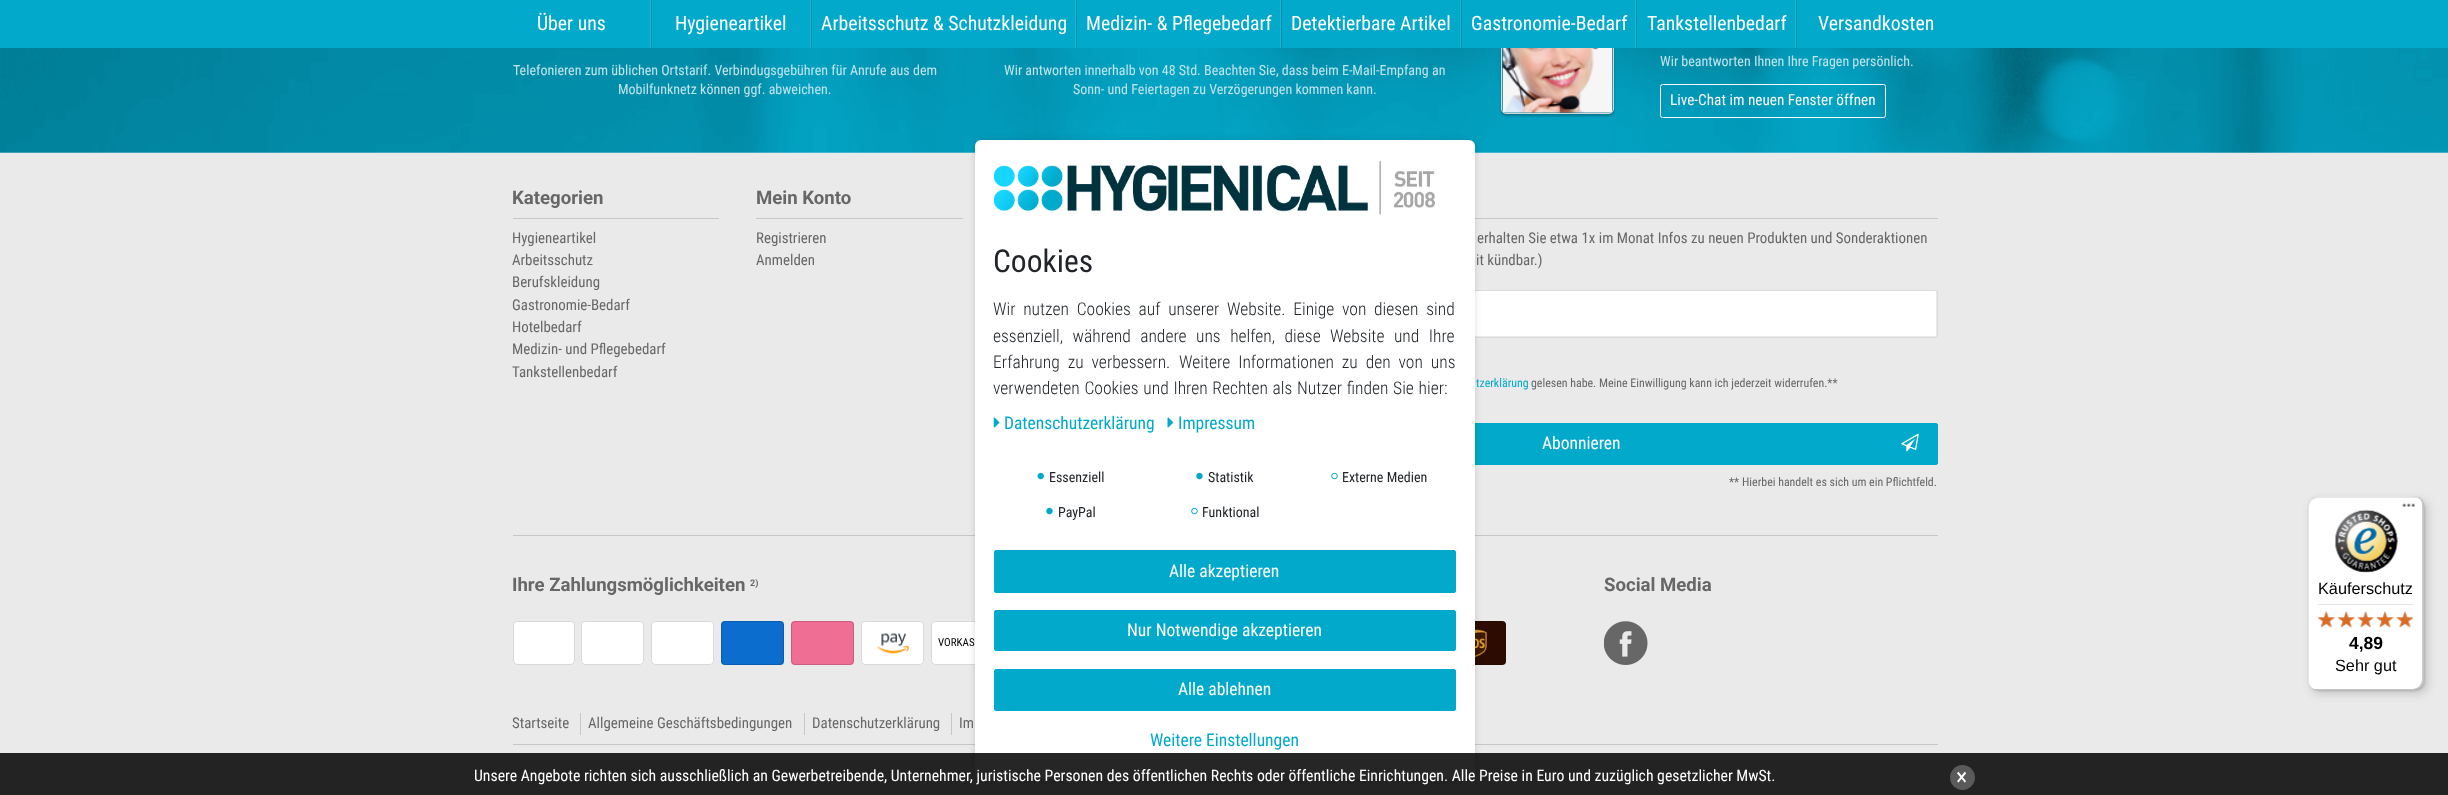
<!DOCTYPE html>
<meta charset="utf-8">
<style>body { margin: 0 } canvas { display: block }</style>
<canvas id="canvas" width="2448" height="795"></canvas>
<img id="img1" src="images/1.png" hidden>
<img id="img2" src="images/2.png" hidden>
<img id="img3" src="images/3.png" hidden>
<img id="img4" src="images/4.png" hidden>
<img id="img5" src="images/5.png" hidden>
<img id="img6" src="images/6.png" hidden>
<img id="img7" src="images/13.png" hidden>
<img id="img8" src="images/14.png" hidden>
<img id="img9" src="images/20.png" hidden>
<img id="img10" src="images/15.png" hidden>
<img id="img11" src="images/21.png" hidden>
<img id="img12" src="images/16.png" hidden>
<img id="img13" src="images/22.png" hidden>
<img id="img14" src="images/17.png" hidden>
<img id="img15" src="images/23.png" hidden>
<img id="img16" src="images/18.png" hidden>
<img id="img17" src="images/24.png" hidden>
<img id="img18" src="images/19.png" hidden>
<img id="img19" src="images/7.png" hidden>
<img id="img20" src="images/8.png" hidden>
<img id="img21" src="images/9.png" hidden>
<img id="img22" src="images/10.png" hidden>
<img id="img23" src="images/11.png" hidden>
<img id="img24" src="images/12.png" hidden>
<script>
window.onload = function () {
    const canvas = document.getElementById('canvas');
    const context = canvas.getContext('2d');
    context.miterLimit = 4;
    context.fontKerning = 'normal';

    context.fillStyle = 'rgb(255, 255, 255)';
    context.fillRect(0, 0, 2448, 795);
    context.drawImage(document.getElementById('img1'), 0, 48, 2448, 105);
    context.fillStyle = 'rgba(0, 0, 0, 0.25)';
    context.filter = 'blur(1px)';
    context.beginPath();
    context.roundRect(1501, 4, 113, 112, 5);
    context.fill();
    context.filter = 'none';
    context.beginPath();
    context.roundRect(1501.5, 1.5, 112, 112, 4.5);
    context.strokeStyle = 'rgb(214, 214, 214)';
    context.stroke();
    context.fillStyle = 'rgb(2, 169, 203)';
    context.fillRect(0, 0, 2448, 48);
    context.fillStyle = 'rgb(33, 179, 209)';
    context.fillRect(650, 0, 1, 48);
    context.fillStyle = 'rgb(32, 179, 209)';
    context.fillRect(810, 0, 1, 48);
    context.fillStyle = 'rgb(2, 144, 173)';
    context.fillRect(651, 0, 1, 48);
    context.fillStyle = 'rgb(32, 179, 209)';
    context.fillRect(1075, 0, 1, 48);
    context.fillStyle = 'rgb(2, 144, 173)';
    context.fillRect(811, 0, 1, 48);
    context.fillStyle = 'rgb(32, 179, 209)';
    context.fillRect(1280, 0, 1, 48);
    context.fillStyle = 'rgb(2, 144, 173)';
    context.fillRect(1076, 0, 1, 48);
    context.fillStyle = 'rgb(32, 179, 209)';
    context.fillRect(1460, 0, 1, 48);
    context.fillStyle = 'rgb(2, 144, 173)';
    context.fillRect(1281, 0, 1, 48);
    context.fillStyle = 'rgb(32, 179, 209)';
    context.fillRect(1635, 0, 1, 48);
    context.fillStyle = 'rgb(2, 144, 173)';
    context.fillRect(1461, 0, 1, 48);
    context.fillStyle = 'rgb(32, 179, 209)';
    context.fillRect(1795, 0, 1, 48);
    context.fillStyle = 'rgb(2, 144, 173)';
    context.fillRect(1636, 0, 1, 48);
    context.fillRect(1796, 0, 1, 48);
    context.drawImage(document.getElementById('img2'), 1502, 48, 111, 65);
    context.beginPath();
    context.roundRect(1660.5, 84.5, 225, 33, 2);
    context.strokeStyle = 'rgb(248, 249, 250)';
    context.stroke();
    context.fillStyle = 'rgb(234, 234, 234)';
    context.fillRect(0, 153, 2448, 642);
    context.fillStyle = 'rgb(199, 199, 199)';
    context.fillRect(513, 218, 206, 1);
    context.fillRect(756, 218, 207, 1);
    context.fillRect(1475, 218, 463, 1);
    context.beginPath();
    context.roundRect(1244.5, 290.5, 693, 47, 1.5);
    context.strokeStyle = 'rgb(220, 219, 216)';
    context.stroke();
    context.fillStyle = 'rgb(255, 255, 255)';
    context.beginPath();
    context.roundRect(1245, 291, 691, 45, 0.5);
    context.fill();
    context.fillStyle = 'rgb(2, 169, 203)';
    context.beginPath();
    context.roundRect(1244.5, 423.5, 693, 41, 1.5);
    context.fill();
    context.strokeStyle = 'rgb(2, 169, 203)';
    context.stroke();
    context.drawImage(document.getElementById('img3'), 1901, 433, 18, 19);
    context.fillStyle = 'rgb(199, 199, 199)';
    context.fillRect(513, 535, 1425, 1);
    context.fillStyle = 'rgb(255, 255, 255)';
    context.beginPath();
    context.roundRect(513, 621, 62, 44, 4);
    context.fill();
    context.beginPath();
    context.roundRect(513.5, 621.5, 61, 43, 3.5);
    context.strokeStyle = 'rgba(0, 0, 0, 0.15)';
    context.stroke();
    context.beginPath();
    context.roundRect(581, 621, 63, 44, 4);
    context.fill();
    context.beginPath();
    context.roundRect(581.5, 621.5, 62, 43, 3.5);
    context.stroke();
    context.beginPath();
    context.roundRect(651, 621, 63, 44, 4);
    context.fill();
    context.beginPath();
    context.roundRect(651.5, 621.5, 62, 43, 3.5);
    context.stroke();
    context.fillStyle = 'rgb(11, 109, 205)';
    context.beginPath();
    context.roundRect(721, 621, 63, 44, 4);
    context.fill();
    context.beginPath();
    context.roundRect(721.5, 621.5, 62, 43, 3.5);
    context.stroke();
    context.fillStyle = 'rgb(239, 110, 148)';
    context.beginPath();
    context.roundRect(791, 621, 63, 44, 4);
    context.fill();
    context.beginPath();
    context.roundRect(791.5, 621.5, 62, 43, 3.5);
    context.stroke();
    context.fillStyle = 'rgb(255, 255, 255)';
    context.beginPath();
    context.roundRect(861, 621, 63, 44, 4);
    context.fill();
    context.drawImage(document.getElementById('img4'), 877, 633, 32, 21);
    context.beginPath();
    context.roundRect(861.5, 621.5, 62, 43, 3.5);
    context.stroke();
    context.beginPath();
    context.roundRect(931, 621, 63, 44, 4);
    context.fill();
    context.beginPath();
    context.roundRect(931.5, 621.5, 62, 43, 3.5);
    context.stroke();
    context.drawImage(document.getElementById('img5'), 1604, 621, 44, 44);
    context.fillStyle = 'rgb(44, 12, 1)';
    context.beginPath();
    context.roundRect(1444, 621, 62, 44, 4);
    context.fill();
    context.drawImage(document.getElementById('img6'), 1475, 629, 12, 28);
    context.beginPath();
    context.roundRect(1444.5, 621.5, 61, 43, 3.5);
    context.stroke();
    context.fillStyle = 'rgb(199, 199, 199)';
    context.fillRect(580, 713, 1, 22);
    context.fillRect(804, 713, 1, 22);
    context.fillRect(951, 713, 1, 22);
    context.fillRect(513, 744, 1425, 1);
    context.fillStyle = 'rgba(0, 0, 0, 0.15)';
    context.filter = 'blur(3px)';
    context.beginPath();
    context.roundRect(975, 141, 500, 639, 6);
    context.fill();
    context.filter = 'none';
    context.filter = 'blur(5px)';
    context.beginPath();
    context.roundRect(2311, 500, 117, 194, 10);
    context.fill();
    context.filter = 'none';
    context.filter = 'blur(1px)';
    context.beginPath();
    context.roundRect(2309, 498, 116, 193, 10);
    context.fill();
    context.filter = 'none';
    context.fillStyle = 'rgb(255, 255, 255)';
    context.beginPath();
    context.roundRect(2308, 496, 116, 194, 10);
    context.fill();
    context.fillStyle = 'rgba(0, 0, 0, 0.1)';
    context.beginPath();
    context.moveTo(2319, 498);
    context.lineTo(2415, 498);
    context.bezierCurveTo(2418, 498, 2421, 499, 2423, 502);
    context.bezierCurveTo(2421, 498, 2418, 496, 2414, 496);
    context.lineTo(2318, 496);
    context.bezierCurveTo(2312, 496, 2308, 500, 2308, 506);
    context.lineTo(2308, 680);
    context.bezierCurveTo(2308, 682, 2309, 685, 2310, 686);
    context.bezierCurveTo(2309, 685, 2309, 683, 2309, 681);
    context.lineTo(2309, 508);
    context.bezierCurveTo(2309, 502, 2313, 498, 2319, 498);
    context.closePath();
    context.fill();
    context.fillStyle = 'rgba(0, 0, 0, 0.2)';
    context.beginPath();
    context.moveTo(2312, 688);
    context.bezierCurveTo(2314, 689, 2316, 690, 2318, 690);
    context.lineTo(2414, 690);
    context.bezierCurveTo(2420, 690, 2424, 686, 2424, 680);
    context.lineTo(2424, 506);
    context.bezierCurveTo(2424, 502, 2422, 499, 2418, 497);
    context.bezierCurveTo(2421, 499, 2422, 502, 2422, 505);
    context.lineTo(2422, 679);
    context.bezierCurveTo(2422, 684, 2418, 689, 2412, 689);
    context.lineTo(2316, 689);
    context.bezierCurveTo(2315, 689, 2313, 689, 2312, 688);
    context.closePath();
    context.fill();
    context.fillStyle = 'rgba(50, 50, 50, 0.2)';
    context.beginPath();
    context.moveTo(2312, 688);
    context.bezierCurveTo(2313, 689, 2316, 690, 2318, 690);
    context.lineTo(2414, 690);
    context.bezierCurveTo(2420, 690, 2424, 686, 2424, 680);
    context.lineTo(2424, 506);
    context.bezierCurveTo(2424, 500, 2420, 496, 2414, 496);
    context.lineTo(2413, 496);
    context.bezierCurveTo(2419, 496, 2423, 500, 2423, 506);
    context.lineTo(2423, 679);
    context.bezierCurveTo(2423, 685, 2419, 689, 2413, 689);
    context.lineTo(2317, 689);
    context.bezierCurveTo(2315, 689, 2313, 689, 2312, 688);
    context.closePath();
    context.fill();
    context.fillStyle = 'rgba(255, 255, 255, 0.3)';
    context.beginPath();
    context.moveTo(2312, 688);
    context.bezierCurveTo(2313, 689, 2316, 690, 2318, 690);
    context.lineTo(2414, 690);
    context.bezierCurveTo(2420, 690, 2424, 686, 2424, 680);
    context.lineTo(2424, 506);
    context.bezierCurveTo(2424, 500, 2420, 496, 2414, 496);
    context.lineTo(2413, 496);
    context.bezierCurveTo(2419, 496, 2423, 500, 2423, 506);
    context.lineTo(2423, 679);
    context.bezierCurveTo(2423, 685, 2419, 689, 2413, 689);
    context.lineTo(2317, 689);
    context.bezierCurveTo(2315, 689, 2313, 689, 2312, 688);
    context.closePath();
    context.fill();
    context.drawImage(document.getElementById('img7'), 2402, 503, 13, 4);
    context.drawImage(document.getElementById('img8'), 2335, 509, 63, 64);
    context.fillStyle = 'rgb(229, 229, 229)';
    context.fillRect(2318, 604, 96, 1);
    context.drawImage(document.getElementById('img9'), 2318, 611, 17, 16);
    context.drawImage(document.getElementById('img10'), 2317, 611, 18, 17);
    context.drawImage(document.getElementById('img11'), 2338, 611, 17, 17);
    context.drawImage(document.getElementById('img12'), 2337, 611, 18, 17);
    context.drawImage(document.getElementById('img13'), 2357, 611, 17, 16);
    context.drawImage(document.getElementById('img14'), 2357, 611, 17, 17);
    context.drawImage(document.getElementById('img15'), 2376, 611, 18, 17);
    context.drawImage(document.getElementById('img16'), 2376, 611, 18, 17);
    context.drawImage(document.getElementById('img17'), 2396, 611, 18, 16);
    context.drawImage(document.getElementById('img18'), 2396, 611, 17, 17);
    context.font = '19.75px Roboto Condensed';
    context.fillStyle = 'rgb(255, 255, 255)';
    context.fillText('Über uns', 537, 30);
    context.fillText('Hygieneartikel', 675, 30);
    context.fillText('Arbeitsschutz & Schutzkleidung', 821, 30);
    context.fillText('Medizin- & Pflegebedarf', 1086, 30);
    context.fillText('Detektierbare Artikel', 1291, 30);
    context.fillText('Gastronomie-Bedarf', 1471, 30);
    context.fillText('Tankstellenbedarf', 1647, 30);
    context.fillText('Versandkosten', 1818, 30);
    context.font = '14px Roboto Condensed';
    context.fillStyle = 'rgb(192, 228, 235)';
    context.fillText('Telefonieren zum üblichen Ortstarif. Verbindugsgebühren für Anrufe aus dem', 513, 75);
    context.fillText('Mobilfunknetz können ggf. abweichen.', 618, 94);
    context.fillText('Wir antworten innerhalb von 48 Std. Beachten Sie, dass beim E-Mail-Empfang an', 1004, 75);
    context.fillText('Sonn- und Feiertagen zu Verzögerungen kommen kann.', 1073, 94);
    context.fillText('Wir beantworten Ihnen Ihre Fragen persönlich.', 1660, 66);
    context.font = '15.25px Roboto Condensed';
    context.fillStyle = 'rgb(248, 249, 250)';
    context.fillText('Live-Chat im neuen Fenster öffnen', 1670, 105);
    context.font = 'bold 18.6px Roboto';
    context.fillStyle = 'rgb(103, 103, 103)';
    context.fillText('Kategorien', 512, 204);
    context.font = '14.9px Roboto Condensed';
    context.fillText('Hygieneartikel', 512, 243);
    context.fillText('Arbeitsschutz', 512, 265);
    context.fillText('Berufskleidung', 512, 287);
    context.fillText('Gastronomie-Bedarf', 512, 310);
    context.fillText('Hotelbedarf', 512, 332);
    context.fillText('Medizin- und Pflegebedarf', 512, 354);
    context.fillText('Tankstellenbedarf', 512, 377);
    context.font = 'bold 18.6px Roboto';
    context.fillText('Mein Konto', 756, 204);
    context.font = '14.9px Roboto Condensed';
    context.fillText('Registrieren', 756, 243);
    context.fillText('Anmelden', 756, 265);
    context.fillText('erhalten Sie etwa 1x im Monat Infos zu neuen Produkten und Sonderaktionen', 1477, 243);
    context.fillText('it kündbar.)', 1476, 265);
    context.font = '11.9px Roboto Condensed';
    context.fillStyle = 'rgb(2, 169, 203)';
    context.fillText('tzerklärung', 1476, 387);
    context.fillStyle = 'rgb(103, 103, 103)';
    context.fillText('gelesen habe. Meine Einwilligung kann ich jederzeit widerrufen.**', 1531, 387);
    context.font = '17.5px Roboto Condensed';
    context.fillStyle = 'rgb(255, 255, 255)';
    context.fillText('Abonnieren', 1542, 449);
    context.font = '11.9px Roboto Condensed';
    context.fillStyle = 'rgb(103, 103, 103)';
    context.fillText('** Hierbei handelt es sich um ein Pflichtfeld.', 1729, 486);
    context.font = 'bold 18.6px Roboto';
    context.fillText('Ihre Zahlungsmöglichkeiten', 512, 591);
    context.font = 'bold 9px Roboto';
    context.fillText('2)', 750, 586);
    context.font = '11px Roboto Condensed';
    context.fillStyle = 'rgb(0, 0, 0)';
    context.fillText('VORKAS', 938, 646);
    context.font = 'bold 18.6px Roboto';
    context.fillStyle = 'rgb(103, 103, 103)';
    context.fillText('Social Media', 1604, 591);
    context.font = '14.9px Roboto Condensed';
    context.fillText('Startseite', 512, 728);
    context.fillText('Allgemeine Geschäftsbedingungen', 588, 728);
    context.fillText('Datenschutzerklärung', 812, 728);
    context.fillText('Im', 959, 728);
    context.fillStyle = 'rgb(255, 255, 255)';
    context.beginPath();
    context.roundRect(975, 140, 500, 639, 6);
    context.fill();
    context.drawImage(document.getElementById('img19'), 993, 161, 442, 54);
    context.font = '31.5px Roboto Condensed';
    context.fillStyle = 'rgb(33, 37, 41)';
    context.fillText('Cookies', 993, 272);
    context.wordSpacing = '3.75px';
    context.font = '300 17.5px Roboto Condensed';
    context.fillText('Wir nutzen Cookies auf unserer Website. Einige von diesen sind', 993, 315);
    context.wordSpacing = '5.5px';
    context.fillText('essenziell, während andere uns helfen, diese Website und Ihre', 993, 342);
    context.wordSpacing = '4px';
    context.fillText('Erfahrung zu verbessern.', 993, 368);
    context.fillText('Weitere Informationen zu den von uns', 1179, 368);
    context.wordSpacing = '0.75px';
    context.fillText('verwendeten Cookies und Ihren Rechten als Nutzer finden Sie hier:', 993, 394);
    context.drawImage(document.getElementById('img20'), 993, 417, 7, 11);
    context.wordSpacing = '0px';
    context.font = '17.5px Roboto Condensed';
    context.fillStyle = 'rgb(2, 169, 203)';
    context.fillText('Datenschutzerklärung', 1004, 429);
    context.drawImage(document.getElementById('img21'), 1167, 417, 7, 11);
    context.fillText('Impressum', 1178, 429);
    context.drawImage(document.getElementById('img22'), 1037, 472, 7, 8);
    context.font = '14px Roboto Condensed';
    context.fillStyle = 'rgb(33, 37, 41)';
    context.fillText('Essenziell', 1049, 482);
    context.drawImage(document.getElementById('img23'), 1196, 472, 7, 8);
    context.fillText('Statistik', 1208, 482);
    context.drawImage(document.getElementById('img24'), 1331, 472, 7, 8);
    context.fillText('Externe Medien', 1342, 482);
    context.drawImage(document.getElementById('img23'), 1046, 507, 7, 8);
    context.fillText('PayPal', 1058, 517);
    context.drawImage(document.getElementById('img24'), 1191, 507, 7, 8);
    context.fillText('Funktional', 1202, 517);
    context.fillStyle = 'rgb(2, 169, 203)';
    context.beginPath();
    context.roundRect(994.5, 550.5, 461, 42, 1.5);
    context.fill();
    context.strokeStyle = 'rgb(2, 169, 203)';
    context.stroke();
    context.font = '17.5px Roboto Condensed';
    context.fillStyle = 'rgb(255, 255, 255)';
    context.fillText('Alle akzeptieren', 1169, 577);
    context.fillStyle = 'rgb(2, 169, 203)';
    context.beginPath();
    context.roundRect(994.5, 610.5, 461, 40, 1.5);
    context.fill();
    context.stroke();
    context.fillStyle = 'rgb(255, 255, 255)';
    context.fillText('Nur Notwendige akzeptieren', 1127, 636);
    context.fillStyle = 'rgb(2, 169, 203)';
    context.beginPath();
    context.roundRect(994.5, 669.5, 461, 41, 1.5);
    context.fill();
    context.stroke();
    context.fillStyle = 'rgb(255, 255, 255)';
    context.fillText('Alle ablehnen', 1178, 695);
    context.fillStyle = 'rgb(2, 169, 203)';
    context.fillText('Weitere Einstellungen', 1150, 746);
    context.font = '16.25px Liberation Sans';
    context.fillStyle = 'rgb(0, 0, 0)';
    context.fillText('Käuferschutz', 2318, 594);
    context.font = 'bold 17.5px Liberation Sans';
    context.fillText('4,89', 2349, 649);
    context.font = '16.25px Liberation Sans';
    context.fillText('Sehr gut', 2335, 671);
    context.fillStyle = 'rgba(0, 0, 0, 0.85)';
    context.fillRect(0, 753, 2448, 42);
    context.font = '15.75px Roboto Condensed';
    context.fillStyle = 'rgb(255, 255, 255)';
    context.fillText('Unsere Angebote richten sich ausschließlich an Gewerbetreibende, Unternehmer, juristische Personen des öffentlichen Rechts oder öffentliche Einrichtungen. Alle Preise in Euro und zuzüglich gesetzlicher MwSt.', 474, 781);
    context.fillStyle = 'rgb(90, 90, 90)';
    context.beginPath();
    context.arc(1962.5, 777.5, 12.5, 0, 2 * Math.PI);
    context.fill();
    context.font = '24px Roboto Condensed';
    context.fillStyle = 'rgb(255, 255, 255)';
    context.fillText('×', 1956, 785);
};
</script>
